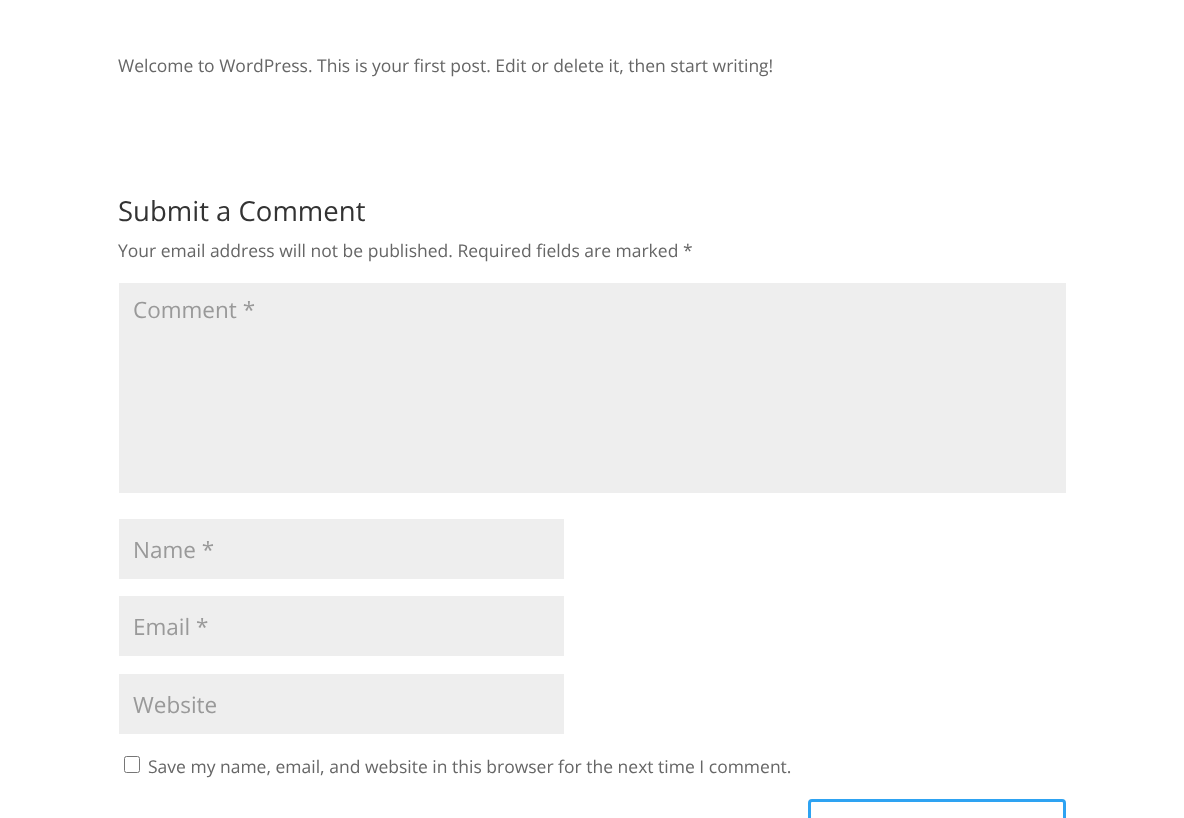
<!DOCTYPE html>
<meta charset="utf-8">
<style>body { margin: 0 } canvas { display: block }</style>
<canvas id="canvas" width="1184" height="818"></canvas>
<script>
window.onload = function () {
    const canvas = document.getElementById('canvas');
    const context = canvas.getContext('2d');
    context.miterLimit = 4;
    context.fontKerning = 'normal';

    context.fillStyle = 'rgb(255, 255, 255)';
    context.fillRect(0, 0, 1184, 818);
    context.fillStyle = 'rgb(238, 238, 238)';
    context.fillRect(119, 283, 947, 210);
    context.fillRect(119, 519, 445, 60);
    context.fillRect(119, 596, 445, 60);
    context.fillRect(119, 674, 445, 60);
    context.beginPath();
    context.roundRect(124.5, 756.5, 15, 16, 2);
    context.strokeStyle = 'rgb(118, 118, 118)';
    context.stroke();
    context.beginPath();
    context.roundRect(809.5, 800.5, 255, 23, 2.5);
    context.strokeStyle = 'rgb(46, 163, 242)';
    context.lineWidth = 3;
    context.stroke();
    context.font = '17.5px Open Sans';
    context.fillStyle = 'rgb(102, 102, 102)';
    context.fillText('Welcome to WordPress. This is your first post. Edit or delete it, then start writing!', 118, 72);
    context.font = '27.5px Open Sans';
    context.fillStyle = 'rgb(51, 51, 51)';
    context.fillText('Submit a Comment', 118, 221);
    context.font = '17.5px Open Sans';
    context.fillStyle = 'rgb(102, 102, 102)';
    context.fillText('Your email address will not be published. Required fields are marked *', 118, 257);
    context.font = '22.5px Open Sans';
    context.fillStyle = 'rgb(153, 153, 153)';
    context.fillText('Comment *', 133, 318);
    context.fillText('Name *', 133, 558);
    context.fillText('Email *', 133, 635);
    context.fillText('Website', 133, 713);
    context.font = '17.5px Open Sans';
    context.fillStyle = 'rgb(102, 102, 102)';
    context.fillText('Save my name, email, and website in this browser for the next time I comment.', 148, 773);
};
</script>
